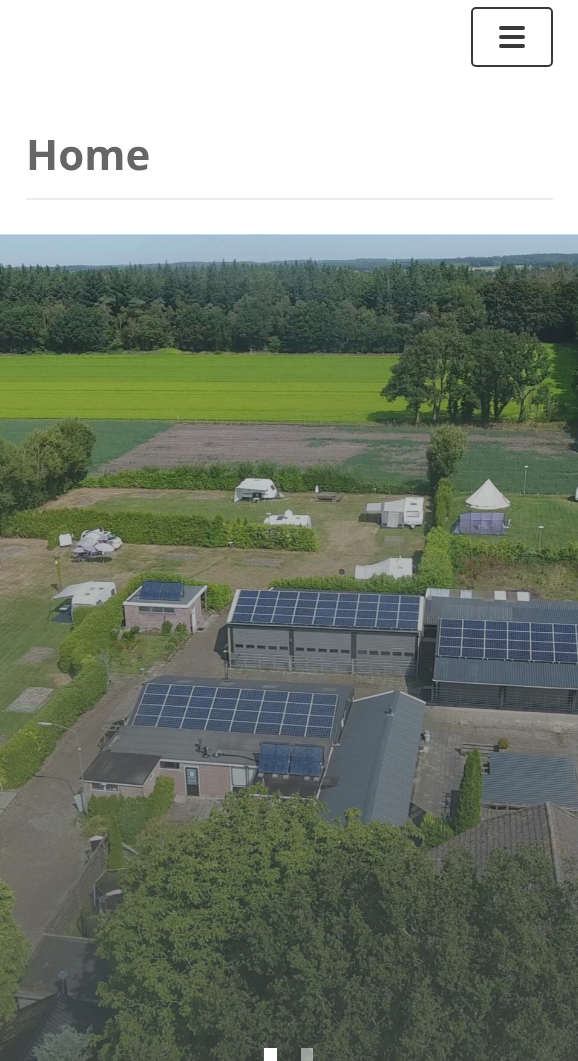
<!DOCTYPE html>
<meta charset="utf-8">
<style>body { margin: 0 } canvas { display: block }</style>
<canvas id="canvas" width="578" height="1061"></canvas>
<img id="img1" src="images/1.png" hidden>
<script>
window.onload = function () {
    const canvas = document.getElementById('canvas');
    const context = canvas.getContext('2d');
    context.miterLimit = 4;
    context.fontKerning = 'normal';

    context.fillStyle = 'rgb(255, 255, 255)';
    context.fillRect(0, 0, 578, 1061);
    context.beginPath();
    context.roundRect(472, 8, 80, 58, 4);
    context.strokeStyle = 'rgb(57, 57, 57)';
    context.lineWidth = 2;
    context.stroke();
    context.fillStyle = 'rgb(57, 57, 57)';
    context.beginPath();
    context.roundRect(499, 26, 26, 4, 2);
    context.fill();
    context.beginPath();
    context.roundRect(499, 35, 26, 4, 2);
    context.fill();
    context.beginPath();
    context.roundRect(499, 44, 26, 4, 2);
    context.fill();
    context.fillStyle = 'rgb(237, 237, 237)';
    context.fillRect(26, 198, 527, 2);
    context.drawImage(document.getElementById('img1'), 0, 234, 578, 827);
    context.fillStyle = 'rgb(255, 255, 255)';
    context.fillRect(264, 1048, 13, 13);
    context.fillStyle = 'rgba(255, 255, 255, 0.5)';
    context.fillRect(301, 1048, 12, 13);
    context.font = 'bold 42px Open Sans';
    context.fillStyle = 'rgb(102, 102, 102)';
    context.fillText('Home', 26, 170);
};
</script>
